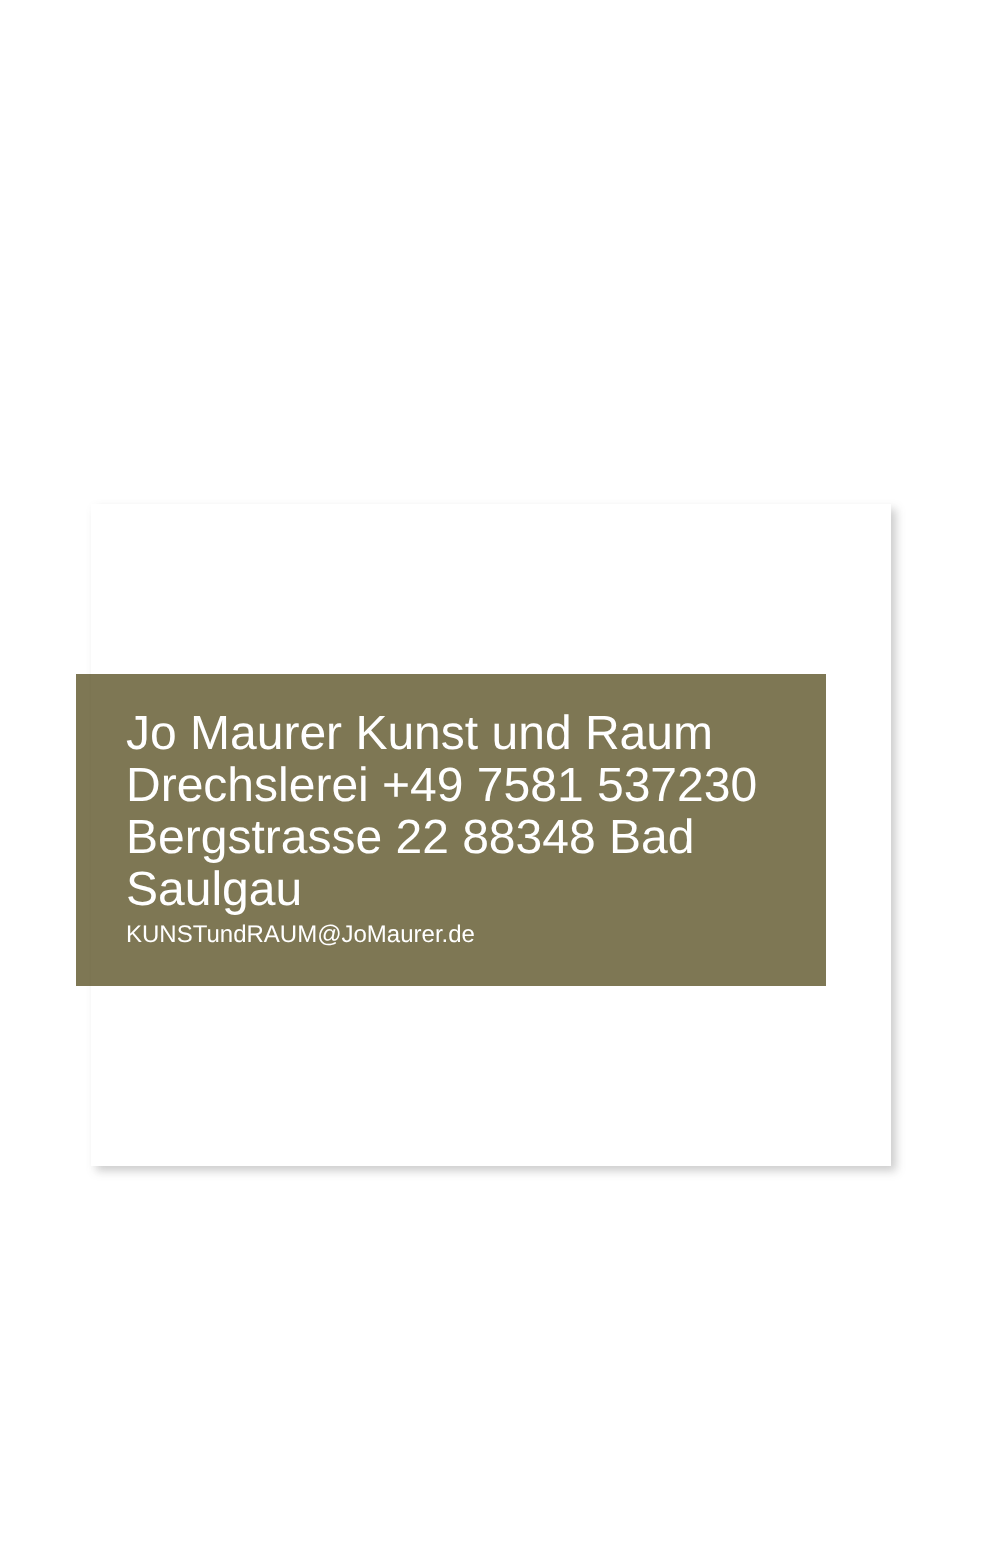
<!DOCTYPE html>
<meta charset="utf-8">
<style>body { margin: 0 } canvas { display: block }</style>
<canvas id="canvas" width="982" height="1567"></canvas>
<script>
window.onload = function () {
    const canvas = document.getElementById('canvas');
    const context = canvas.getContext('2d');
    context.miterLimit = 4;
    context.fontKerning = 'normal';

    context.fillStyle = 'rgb(255, 255, 255)';
    context.fillRect(0, 0, 982, 1567);
    context.save();
    context.beginPath();
    context.moveTo(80, 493);
    context.lineTo(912, 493);
    context.lineTo(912, 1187);
    context.lineTo(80, 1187);
    context.closePath();
    context.moveTo(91, 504);
    context.lineTo(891, 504);
    context.lineTo(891, 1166);
    context.lineTo(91, 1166);
    context.closePath();
    context.clip('evenodd');
    context.fillStyle = 'rgba(50, 50, 50, 0.25)';
    context.filter = 'blur(5px)';
    context.beginPath();
    context.rect(96, 509, 800, 662);
    context.fill();
    context.filter = 'none';
    context.restore();
    context.fillStyle = 'rgba(71, 61, 11, 0.7)';
    context.fillRect(76, 674, 750, 312);
    context.font = '48px Liberation Sans';
    context.fillStyle = 'rgb(255, 255, 255)';
    context.fillText('Jo Maurer Kunst und Raum', 126, 749);
    context.fillText('Drechslerei +49 7581 537230', 126, 801);
    context.fillText('Bergstrasse 22 88348 Bad', 126, 853);
    context.fillText('Saulgau', 126, 905);
    context.font = '24px Liberation Sans';
    context.fillText('KUNSTundRAUM@JoMaurer.de', 126, 942);
};
</script>
